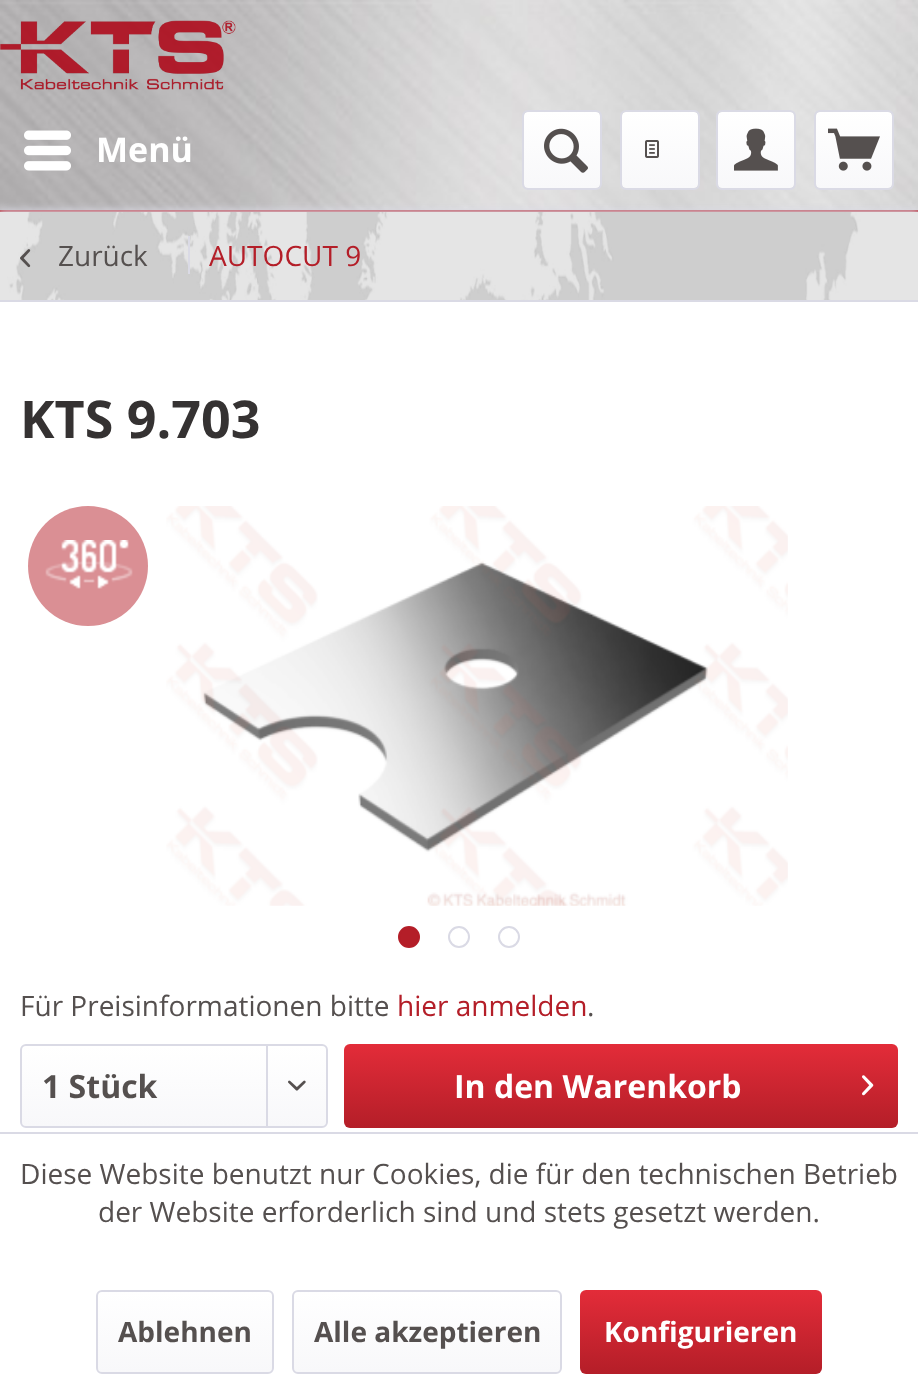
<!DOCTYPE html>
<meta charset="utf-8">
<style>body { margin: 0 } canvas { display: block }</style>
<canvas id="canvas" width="918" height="1394"></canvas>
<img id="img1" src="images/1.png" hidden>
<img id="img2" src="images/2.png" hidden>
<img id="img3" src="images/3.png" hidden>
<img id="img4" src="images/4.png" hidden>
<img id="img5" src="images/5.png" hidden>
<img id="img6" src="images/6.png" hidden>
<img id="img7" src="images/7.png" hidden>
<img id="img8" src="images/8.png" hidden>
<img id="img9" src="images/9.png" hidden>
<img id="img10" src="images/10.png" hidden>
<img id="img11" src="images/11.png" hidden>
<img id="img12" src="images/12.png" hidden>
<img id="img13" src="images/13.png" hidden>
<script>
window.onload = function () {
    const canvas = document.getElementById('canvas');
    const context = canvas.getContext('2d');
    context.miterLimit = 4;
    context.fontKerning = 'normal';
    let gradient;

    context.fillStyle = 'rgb(255, 255, 255)';
    context.fillRect(0, 0, 918, 1394);
    context.drawImage(document.getElementById('img1'), 0, 0, 918, 210);
    context.fillStyle = 'rgb(180, 30, 40)';
    context.fillRect(0, 210, 918, 2);
    context.drawImage(document.getElementById('img2'), 0, 20, 236, 70);
    context.drawImage(document.getElementById('img3'), 24, 130, 47, 41);
    gradient = context.createLinearGradient(562, 112, 562, 188);
    gradient.addColorStop(0, 'rgb(255, 255, 255)');
    gradient.addColorStop(1, 'rgb(248, 248, 250)');
    context.fillStyle = gradient;
    context.beginPath();
    context.roundRect(524, 112, 76, 76, 4);
    context.fill();
    context.beginPath();
    context.roundRect(523, 111, 78, 78, 5);
    context.strokeStyle = 'rgb(218, 218, 229)';
    context.lineWidth = 2;
    context.stroke();
    context.drawImage(document.getElementById('img4'), 544, 128, 44, 45);
    gradient = context.createLinearGradient(660, 112, 660, 188);
    gradient.addColorStop(0, 'rgb(255, 255, 255)');
    gradient.addColorStop(1, 'rgb(248, 248, 250)');
    context.fillStyle = gradient;
    context.beginPath();
    context.roundRect(622, 112, 76, 76, 4);
    context.fill();
    context.beginPath();
    context.roundRect(621, 111, 78, 78, 5);
    context.stroke();
    context.drawImage(document.getElementById('img5'), 645, 140, 14, 18);
    gradient = context.createLinearGradient(756, 112, 756, 188);
    gradient.addColorStop(0, 'rgb(255, 255, 255)');
    gradient.addColorStop(1, 'rgb(248, 248, 250)');
    context.fillStyle = gradient;
    context.beginPath();
    context.roundRect(718, 112, 76, 76, 4);
    context.fill();
    context.beginPath();
    context.roundRect(717, 111, 78, 78, 5);
    context.stroke();
    context.drawImage(document.getElementById('img6'), 734, 128, 44, 43);
    gradient = context.createLinearGradient(854, 112, 854, 188);
    gradient.addColorStop(0, 'rgb(255, 255, 255)');
    gradient.addColorStop(1, 'rgb(248, 248, 250)');
    context.fillStyle = gradient;
    context.beginPath();
    context.roundRect(816, 112, 76, 76, 4);
    context.fill();
    context.beginPath();
    context.roundRect(815, 111, 78, 78, 5);
    context.stroke();
    context.drawImage(document.getElementById('img7'), 828, 128, 52, 43);
    context.drawImage(document.getElementById('img8'), 0, 212, 918, 88);
    context.save();
    context.beginPath();
    context.rect(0, 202, 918, 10);
    context.clip();
    context.fillStyle = 'rgb(218, 218, 229)';
    context.filter = 'blur(4px)';
    context.beginPath();
    context.rect(-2, 210, 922, 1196);
    context.fill();
    context.filter = 'none';
    context.restore();
    context.fillStyle = 'rgb(218, 218, 229)';
    context.fillRect(0, 300, 918, 2);
    context.drawImage(document.getElementById('img9'), 20, 249, 11, 19);
    context.fillRect(188, 236, 2, 38);
    context.fillStyle = 'rgb(218, 143, 148)';
    context.beginPath();
    context.arc(88, 566, 60, 0, 2 * Math.PI);
    context.fill();
    context.drawImage(document.getElementById('img10'), 45, 540, 88, 49);
    context.drawImage(document.getElementById('img11'), 166, 506, 622, 400);
    context.fillStyle = 'rgb(180, 30, 40)';
    context.beginPath();
    context.arc(409, 937, 10, 0, 2 * Math.PI);
    context.fill();
    context.strokeStyle = 'rgb(180, 30, 40)';
    context.stroke();
    context.beginPath();
    context.arc(459, 937, 10, 0, 2 * Math.PI);
    context.strokeStyle = 'rgb(218, 218, 229)';
    context.stroke();
    context.beginPath();
    context.arc(509, 937, 10, 0, 2 * Math.PI);
    context.stroke();
    gradient = context.createLinearGradient(174, 1046, 174, 1126);
    gradient.addColorStop(0, 'rgb(255, 255, 255)');
    gradient.addColorStop(1, 'rgb(248, 248, 250)');
    context.fillStyle = gradient;
    context.beginPath();
    context.roundRect(22, 1046, 304, 80, 4);
    context.fill();
    context.beginPath();
    context.roundRect(21, 1045, 306, 82, 5);
    context.stroke();
    context.fillStyle = 'rgb(218, 218, 229)';
    context.fillRect(266, 1046, 2, 80);
    context.drawImage(document.getElementById('img12'), 288, 1080, 18, 11);
    gradient = context.createLinearGradient(621, 1044, 621, 1128);
    gradient.addColorStop(0, 'rgb(227, 44, 57)');
    gradient.addColorStop(1, 'rgb(180, 30, 40)');
    context.fillStyle = gradient;
    context.beginPath();
    context.roundRect(344, 1044, 554, 84, 6);
    context.fill();
    context.drawImage(document.getElementById('img13'), 862, 1075, 12, 21);
    context.fillStyle = 'rgb(218, 218, 229)';
    context.fillRect(0, 1132, 918, 2);
    gradient = context.createLinearGradient(185, 1292, 185, 1372);
    gradient.addColorStop(0, 'rgb(255, 255, 255)');
    gradient.addColorStop(1, 'rgb(248, 248, 250)');
    context.fillStyle = gradient;
    context.beginPath();
    context.roundRect(98, 1292, 174, 80, 4);
    context.fill();
    context.beginPath();
    context.roundRect(97, 1291, 176, 82, 5);
    context.stroke();
    gradient = context.createLinearGradient(427, 1292, 427, 1372);
    gradient.addColorStop(0, 'rgb(255, 255, 255)');
    gradient.addColorStop(1, 'rgb(248, 248, 250)');
    context.fillStyle = gradient;
    context.beginPath();
    context.roundRect(294, 1292, 266, 80, 4);
    context.fill();
    context.beginPath();
    context.roundRect(293, 1291, 268, 82, 5);
    context.stroke();
    gradient = context.createLinearGradient(701, 1290, 701, 1374);
    gradient.addColorStop(0, 'rgb(227, 44, 57)');
    gradient.addColorStop(1, 'rgb(180, 30, 40)');
    context.fillStyle = gradient;
    context.beginPath();
    context.roundRect(580, 1290, 242, 84, 6);
    context.fill();
    context.font = 'bold 34px Open Sans';
    context.fillStyle = 'rgb(255, 255, 255)';
    context.fillText('Menü', 96, 162);
    context.font = '28px Open Sans';
    context.fillStyle = 'rgb(85, 80, 79)';
    context.fillText('Zurück', 58, 266);
    context.fillStyle = 'rgb(180, 30, 40)';
    context.fillText('AUTOCUT 9', 209, 266);
    context.font = 'bold 52px Open Sans';
    context.fillStyle = 'rgb(53, 50, 50)';
    context.fillText('KTS 9.703', 20, 438);
    context.font = '28px Open Sans';
    context.fillStyle = 'rgb(85, 80, 79)';
    context.fillText('Für Preisinformationen bitte', 20, 1016);
    context.fillStyle = 'rgb(180, 30, 40)';
    context.fillText('hier anmelden', 397, 1016);
    context.fillStyle = 'rgb(85, 80, 79)';
    context.fillText('.', 587, 1016);
    context.font = 'bold 32px Open Sans';
    context.fillText('1 Stück', 42, 1098);
    context.fillStyle = 'rgb(255, 255, 255)';
    context.fillText('In den Warenkorb', 454, 1098);
    context.font = '28px Open Sans';
    context.fillStyle = 'rgb(85, 80, 79)';
    context.fillText('Diese Website benutzt nur Cookies, die für den technischen Betrieb', 20, 1184);
    context.fillText('der Website erforderlich sind und stets gesetzt werden.', 98, 1222);
    context.font = 'bold 28px Open Sans';
    context.fillText('Ablehnen', 118, 1342);
    context.fillText('Alle akzeptieren', 314, 1342);
    context.fillStyle = 'rgb(255, 255, 255)';
    context.fillText('Konfigurieren', 604, 1342);
};
</script>
